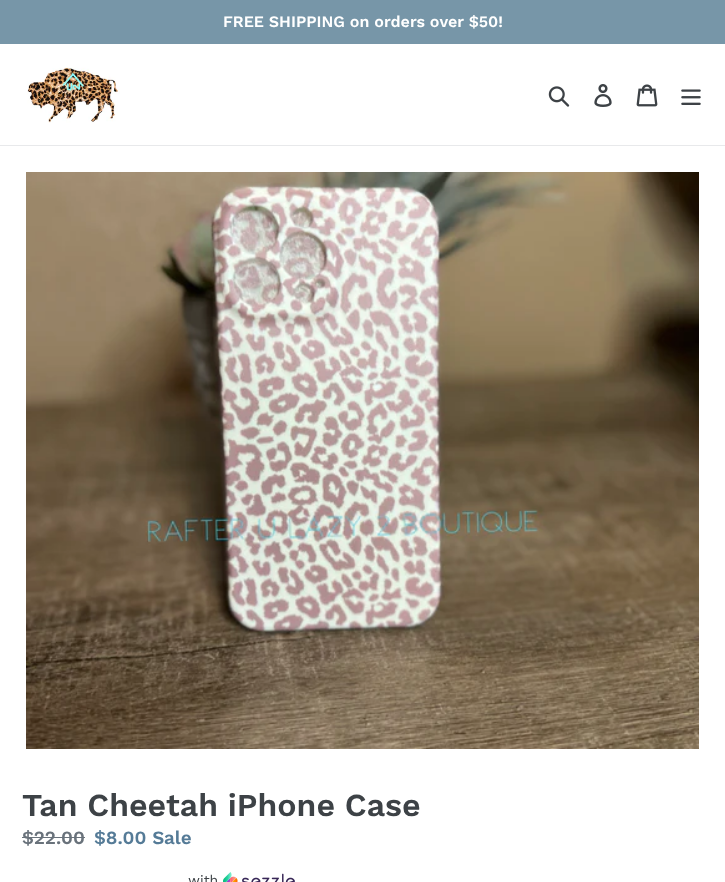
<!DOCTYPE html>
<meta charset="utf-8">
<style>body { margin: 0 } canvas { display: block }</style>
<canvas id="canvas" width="725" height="882"></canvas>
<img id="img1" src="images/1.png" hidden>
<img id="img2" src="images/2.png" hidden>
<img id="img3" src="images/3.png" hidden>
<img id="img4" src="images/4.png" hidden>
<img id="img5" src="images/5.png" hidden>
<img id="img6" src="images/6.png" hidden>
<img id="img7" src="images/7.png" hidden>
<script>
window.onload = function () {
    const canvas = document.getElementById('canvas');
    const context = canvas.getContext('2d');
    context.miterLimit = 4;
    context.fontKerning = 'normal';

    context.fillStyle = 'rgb(255, 255, 255)';
    context.fillRect(0, 0, 725, 882);
    context.fillStyle = 'rgb(119, 150, 168)';
    context.fillRect(0, 0, 725, 44);
    context.fillStyle = 'rgb(232, 233, 235)';
    context.fillRect(0, 145, 725, 1);
    context.drawImage(document.getElementById('img1'), 27, 67, 93, 56);
    context.drawImage(document.getElementById('img2'), 548, 86, 22, 21);
    context.drawImage(document.getElementById('img3'), 594, 84, 18, 23);
    context.drawImage(document.getElementById('img4'), 636, 84, 22, 23);
    context.drawImage(document.getElementById('img5'), 681, 89, 20, 16);
    context.drawImage(document.getElementById('img6'), 26, 172, 673, 577);
    context.fillStyle = 'rgb(105, 114, 123)';
    context.fillRect(22, 837, 63, 1);
    context.drawImage(document.getElementById('img7'), 223, 872, 72, 10);
    context.font = '600 16px Work Sans';
    context.fillStyle = 'rgb(255, 255, 255)';
    context.fillText('FREE SHIPPING on orders over $50!', 223, 27);
    context.font = '600 32px Work Sans';
    context.fillStyle = 'rgb(61, 66, 70)';
    context.fillText('Tan Cheetah iPhone Case', 22, 816);
    context.font = '600 18.75px Work Sans';
    context.fillStyle = 'rgb(105, 114, 123)';
    context.fillText('$22.00', 22, 844);
    context.fillStyle = 'rgb(85, 123, 151)';
    context.fillText('$8.00 Sale', 94, 844);
    context.font = '14px Work Sans';
    context.fillStyle = 'rgb(61, 66, 70)';
    context.fillText('with', 188, 885);
};
</script>
